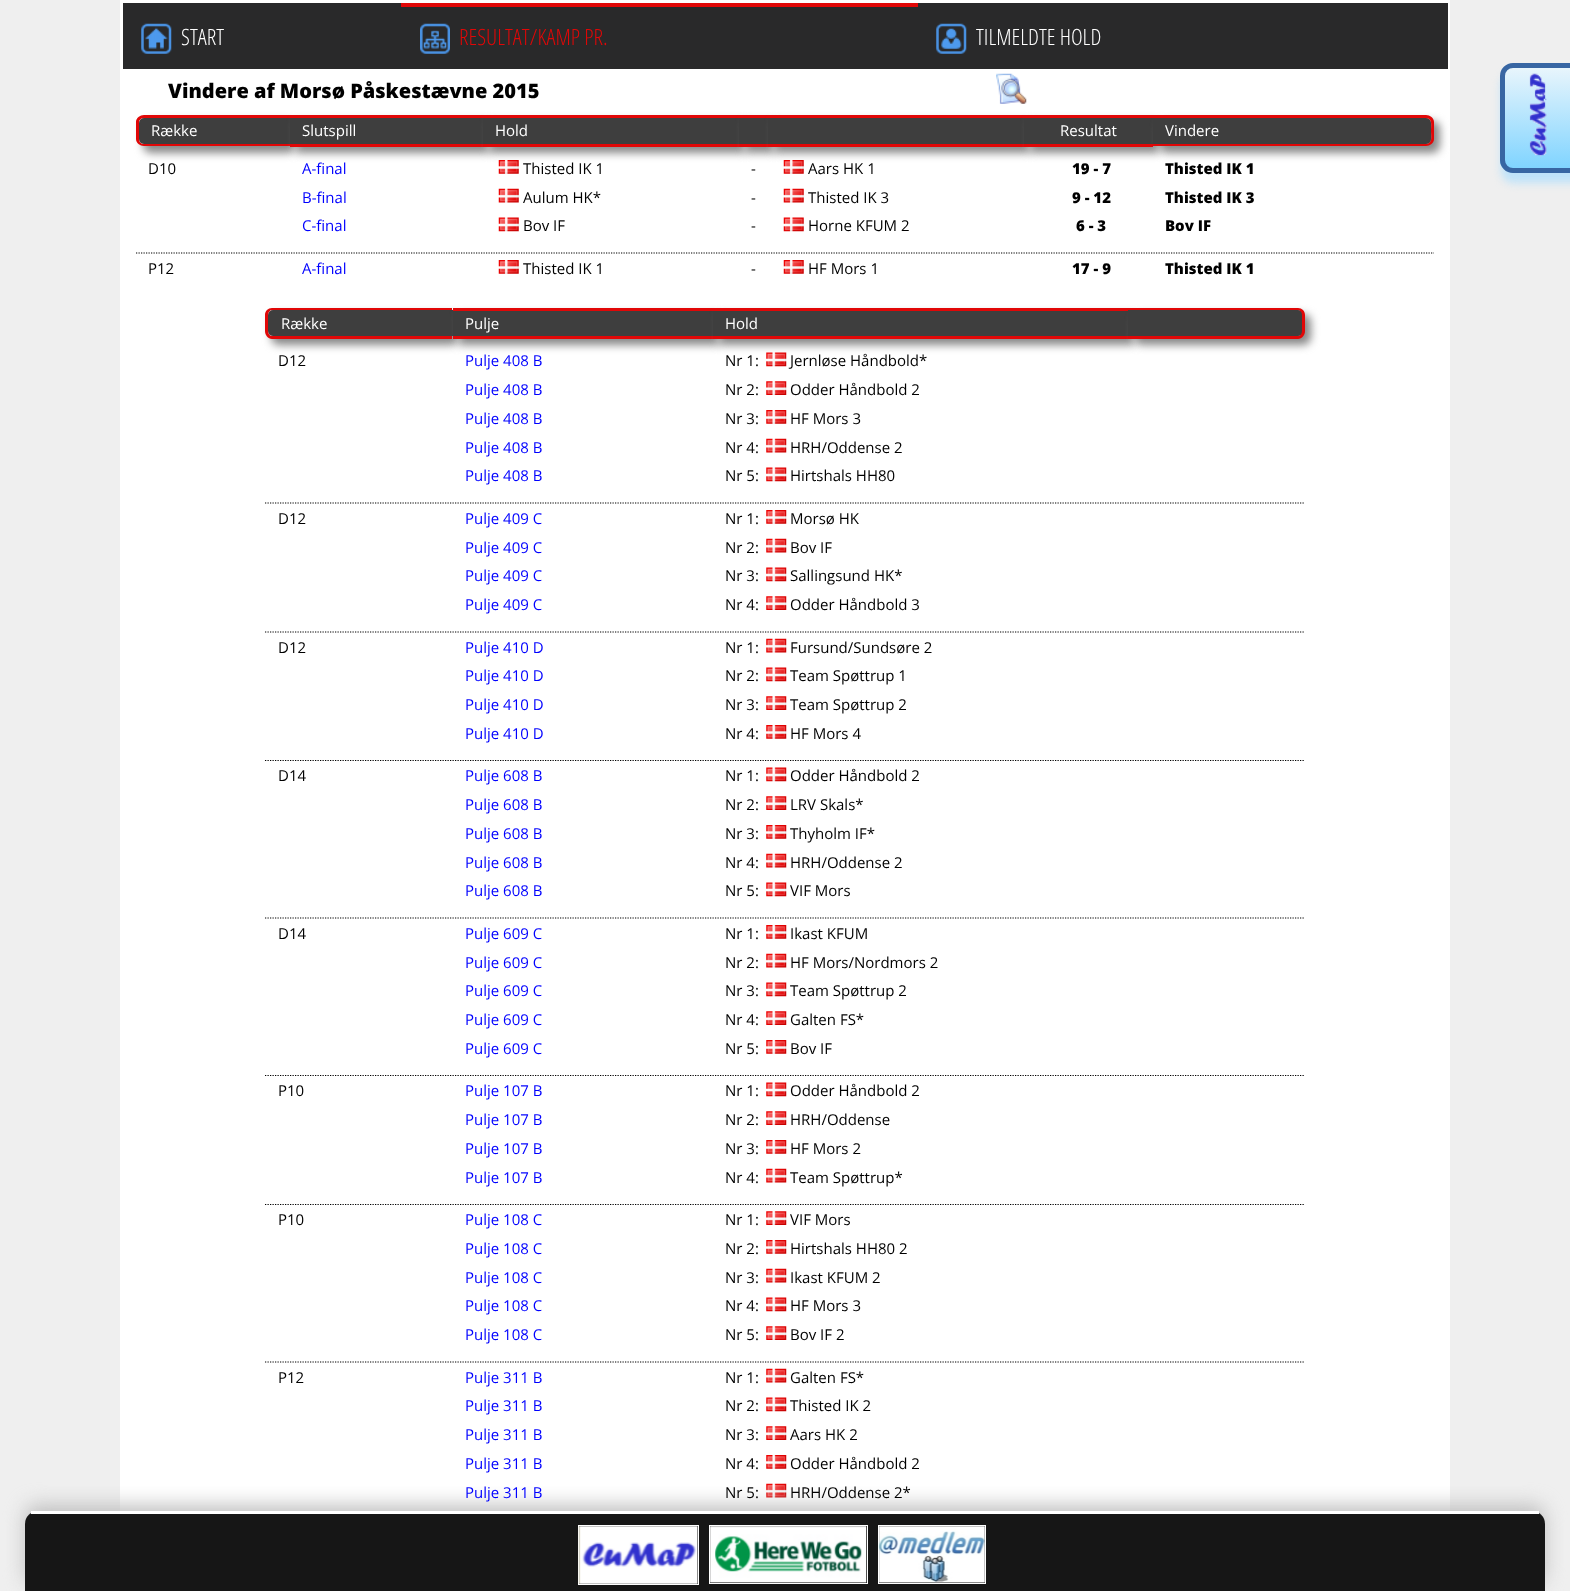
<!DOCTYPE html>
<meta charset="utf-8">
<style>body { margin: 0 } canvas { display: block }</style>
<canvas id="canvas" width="1570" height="1591"></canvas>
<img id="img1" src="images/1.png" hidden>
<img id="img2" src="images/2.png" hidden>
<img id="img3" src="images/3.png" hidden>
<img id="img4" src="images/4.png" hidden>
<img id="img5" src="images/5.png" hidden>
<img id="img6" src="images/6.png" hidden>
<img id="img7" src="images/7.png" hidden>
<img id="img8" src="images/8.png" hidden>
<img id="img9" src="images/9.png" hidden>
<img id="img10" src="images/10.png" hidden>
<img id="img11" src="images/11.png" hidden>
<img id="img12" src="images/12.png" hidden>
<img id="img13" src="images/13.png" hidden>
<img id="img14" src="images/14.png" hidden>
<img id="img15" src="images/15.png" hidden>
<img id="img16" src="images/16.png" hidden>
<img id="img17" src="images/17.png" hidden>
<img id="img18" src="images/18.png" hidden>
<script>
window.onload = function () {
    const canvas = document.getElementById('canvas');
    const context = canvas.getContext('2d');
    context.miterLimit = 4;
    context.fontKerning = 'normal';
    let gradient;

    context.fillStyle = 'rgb(239, 239, 239)';
    context.fillRect(0, 0, 1570, 1591);
    context.fillStyle = 'rgb(255, 255, 255)';
    context.fillRect(120, 0, 1330, 1511);
    context.fillStyle = 'rgb(41, 41, 42)';
    context.fillRect(123, 3, 278, 66);
    context.drawImage(document.getElementById('img1'), 141, 23, 31, 31);
    context.fillRect(401, 7, 517, 62);
    context.fillStyle = 'rgb(225, 7, 7)';
    context.fillRect(401, 3, 517, 4);
    context.drawImage(document.getElementById('img2'), 420, 23, 30, 31);
    context.fillStyle = 'rgb(41, 41, 42)';
    context.fillRect(918, 3, 530, 66);
    context.drawImage(document.getElementById('img3'), 936, 23, 31, 31);
    context.drawImage(document.getElementById('img4'), 996, 73, 31, 31);
    context.fillStyle = 'rgb(190, 226, 249)';
    context.filter = 'blur(4.5px)';
    context.beginPath();
    context.roundRect(1501, 73, 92, 110, 13);
    context.fill();
    context.filter = 'none';
    context.save();
    context.beginPath();
    context.roundRect(1500, 63, 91, 110, 13);
    context.clip();
    gradient = context.createLinearGradient(1505, 68, 1505, 168);
    gradient.addColorStop(0, 'rgb(232, 245, 252)');
    gradient.addColorStop(1, 'rgb(128, 212, 255)');
    context.fillStyle = gradient;
    context.fillRect(1500, 68, 70, 100);
    context.restore();
    context.beginPath();
    context.roundRect(1502.5, 65.5, 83, 105, 10.5);
    context.strokeStyle = 'rgb(56, 102, 163)';
    context.lineWidth = 5;
    context.stroke();
    context.drawImage(document.getElementById('img5'), 1529, 73, 18, 84);
    context.fillStyle = 'rgb(136, 136, 136)';
    context.filter = 'blur(4.5px)';
    context.beginPath();
    context.roundRect(143, 121, 153, 32, 8);
    context.fill();
    context.filter = 'none';
    context.fillStyle = 'rgb(62, 62, 62)';
    context.beginPath();
    context.roundRect(139, 118, 151, 26, [5, 0, 0, 5]);
    context.fill();
    context.fillStyle = 'rgb(225, 7, 7)';
    context.beginPath();
    context.moveTo(144, 115);
    context.lineTo(290, 115);
    context.lineTo(290, 146);
    context.lineTo(144, 146);
    context.bezierCurveTo(140, 146, 136, 143, 136, 139);
    context.lineTo(136, 122);
    context.bezierCurveTo(136, 118, 140, 115, 144, 115);
    context.closePath();
    context.moveTo(144, 118);
    context.lineTo(290, 118);
    context.lineTo(290, 144);
    context.lineTo(144, 144);
    context.bezierCurveTo(141, 144, 139, 142, 139, 139);
    context.lineTo(139, 122);
    context.bezierCurveTo(139, 120, 141, 118, 144, 118);
    context.closePath();
    context.fill('evenodd');
    context.fillStyle = 'rgb(136, 136, 136)';
    context.filter = 'blur(4.5px)';
    context.beginPath();
    context.rect(296, 121, 193, 32);
    context.fill();
    context.filter = 'none';
    context.fillStyle = 'rgb(62, 62, 62)';
    context.fillRect(290, 118, 193, 26);
    context.fillStyle = 'rgb(225, 7, 7)';
    context.fillRect(290, 115, 193, 3);
    context.fillRect(290, 144, 193, 3);
    context.fillStyle = 'rgb(136, 136, 136)';
    context.filter = 'blur(4.5px)';
    context.beginPath();
    context.rect(489, 121, 256, 32);
    context.fill();
    context.filter = 'none';
    context.fillStyle = 'rgb(62, 62, 62)';
    context.fillRect(483, 118, 256, 26);
    context.fillStyle = 'rgb(225, 7, 7)';
    context.fillRect(483, 115, 256, 3);
    context.fillRect(483, 144, 256, 3);
    context.fillStyle = 'rgb(136, 136, 136)';
    context.filter = 'blur(4.5px)';
    context.beginPath();
    context.rect(745, 121, 29, 32);
    context.fill();
    context.filter = 'none';
    context.fillStyle = 'rgb(62, 62, 62)';
    context.fillRect(739, 118, 29, 26);
    context.fillStyle = 'rgb(225, 7, 7)';
    context.fillRect(739, 115, 29, 3);
    context.fillRect(739, 144, 29, 3);
    context.fillStyle = 'rgb(136, 136, 136)';
    context.filter = 'blur(4.5px)';
    context.beginPath();
    context.rect(774, 121, 256, 32);
    context.fill();
    context.filter = 'none';
    context.fillStyle = 'rgb(62, 62, 62)';
    context.fillRect(768, 118, 256, 26);
    context.fillStyle = 'rgb(225, 7, 7)';
    context.fillRect(768, 115, 256, 3);
    context.fillRect(768, 144, 256, 3);
    context.fillStyle = 'rgb(136, 136, 136)';
    context.filter = 'blur(4.5px)';
    context.beginPath();
    context.rect(1030, 121, 129, 32);
    context.fill();
    context.filter = 'none';
    context.fillStyle = 'rgb(62, 62, 62)';
    context.fillRect(1024, 118, 129, 26);
    context.fillStyle = 'rgb(225, 7, 7)';
    context.fillRect(1024, 115, 129, 3);
    context.fillRect(1024, 144, 129, 3);
    context.fillStyle = 'rgb(136, 136, 136)';
    context.filter = 'blur(4.5px)';
    context.beginPath();
    context.roundRect(1159, 121, 281, 32, 8);
    context.fill();
    context.filter = 'none';
    context.fillStyle = 'rgb(62, 62, 62)';
    context.beginPath();
    context.roundRect(1153, 118, 278, 26, [0, 5, 5, 0]);
    context.fill();
    context.fillStyle = 'rgb(225, 7, 7)';
    context.beginPath();
    context.moveTo(1152, 115);
    context.lineTo(1426, 115);
    context.bezierCurveTo(1430, 115, 1434, 118, 1434, 122);
    context.lineTo(1434, 139);
    context.bezierCurveTo(1434, 143, 1430, 146, 1426, 146);
    context.lineTo(1152, 146);
    context.closePath();
    context.moveTo(1152, 118);
    context.lineTo(1426, 118);
    context.bezierCurveTo(1433, 118, 1431, 127, 1431, 131);
    context.bezierCurveTo(1431, 135, 1433, 143, 1427, 144);
    context.lineTo(1152, 144);
    context.closePath();
    context.fill('evenodd');
    context.drawImage(document.getElementById('img6'), 498, 160, 21, 14);
    context.drawImage(document.getElementById('img6'), 783, 160, 21, 14);
    context.drawImage(document.getElementById('img7'), 498, 188, 21, 15);
    context.drawImage(document.getElementById('img7'), 783, 188, 21, 15);
    context.drawImage(document.getElementById('img8'), 498, 217, 21, 15);
    context.drawImage(document.getElementById('img8'), 783, 217, 21, 15);
    context.beginPath();
    context.moveTo(136, 253);
    context.lineTo(1434, 253);
    context.strokeStyle = 'rgb(0, 0, 0)';
    context.lineWidth = 1.2;
    context.setLineDash([1.25, 1.25]);
    context.stroke();
    context.drawImage(document.getElementById('img9'), 498, 260, 21, 14);
    context.drawImage(document.getElementById('img9'), 783, 260, 21, 14);
    context.fillStyle = 'rgb(136, 136, 136)';
    context.filter = 'blur(4.5px)';
    context.beginPath();
    context.roundRect(271, 314, 188, 31, 8);
    context.fill();
    context.filter = 'none';
    context.fillStyle = 'rgb(62, 62, 62)';
    context.beginPath();
    context.roundRect(268, 310, 185, 26, [5, 0, 0, 5]);
    context.fill();
    context.fillStyle = 'rgb(225, 7, 7)';
    context.beginPath();
    context.moveTo(272, 308);
    context.lineTo(452, 308);
    context.lineTo(452, 339);
    context.lineTo(272, 339);
    context.bezierCurveTo(268, 339, 265, 335, 265, 331);
    context.lineTo(265, 315);
    context.bezierCurveTo(265, 311, 268, 308, 272, 308);
    context.closePath();
    context.moveTo(272, 310);
    context.lineTo(452, 310);
    context.lineTo(452, 336);
    context.lineTo(272, 336);
    context.bezierCurveTo(270, 336, 268, 334, 268, 331);
    context.lineTo(268, 315);
    context.bezierCurveTo(268, 312, 270, 310, 272, 310);
    context.closePath();
    context.fill('evenodd');
    context.fillStyle = 'rgb(136, 136, 136)';
    context.filter = 'blur(4.5px)';
    context.beginPath();
    context.rect(459, 314, 260, 31);
    context.fill();
    context.filter = 'none';
    context.fillStyle = 'rgb(62, 62, 62)';
    context.fillRect(453, 311, 260, 25);
    context.fillStyle = 'rgb(225, 7, 7)';
    context.fillRect(453, 308, 260, 3);
    context.fillRect(453, 336, 260, 3);
    context.fillStyle = 'rgb(136, 136, 136)';
    context.filter = 'blur(4.5px)';
    context.beginPath();
    context.rect(719, 314, 415, 31);
    context.fill();
    context.filter = 'none';
    context.fillStyle = 'rgb(62, 62, 62)';
    context.fillRect(713, 311, 415, 25);
    context.fillStyle = 'rgb(225, 7, 7)';
    context.fillRect(713, 308, 415, 3);
    context.fillRect(713, 336, 415, 3);
    context.fillStyle = 'rgb(136, 136, 136)';
    context.filter = 'blur(4.5px)';
    context.beginPath();
    context.roundRect(1134, 314, 177, 31, 8);
    context.fill();
    context.filter = 'none';
    context.fillStyle = 'rgb(62, 62, 62)';
    context.beginPath();
    context.roundRect(1128, 310, 175, 26, [0, 5, 5, 0]);
    context.fill();
    context.fillStyle = 'rgb(225, 7, 7)';
    context.beginPath();
    context.moveTo(1128, 308);
    context.lineTo(1298, 308);
    context.bezierCurveTo(1302, 308, 1305, 311, 1305, 315);
    context.lineTo(1305, 331);
    context.bezierCurveTo(1305, 335, 1302, 339, 1298, 339);
    context.lineTo(1128, 339);
    context.closePath();
    context.moveTo(1128, 310);
    context.lineTo(1298, 310);
    context.bezierCurveTo(1300, 310, 1302, 312, 1302, 315);
    context.lineTo(1302, 331);
    context.bezierCurveTo(1302, 334, 1300, 336, 1298, 336);
    context.lineTo(1128, 336);
    context.closePath();
    context.fill('evenodd');
    context.drawImage(document.getElementById('img10'), 766, 352, 21, 15);
    context.drawImage(document.getElementById('img11'), 766, 381, 21, 14);
    context.drawImage(document.getElementById('img12'), 766, 410, 21, 14);
    context.drawImage(document.getElementById('img13'), 766, 438, 21, 15);
    context.drawImage(document.getElementById('img14'), 766, 467, 21, 15);
    context.beginPath();
    context.moveTo(265, 503);
    context.lineTo(1305, 503);
    context.stroke();
    context.drawImage(document.getElementById('img12'), 766, 510, 21, 14);
    context.drawImage(document.getElementById('img13'), 766, 538, 21, 15);
    context.drawImage(document.getElementById('img14'), 766, 567, 21, 15);
    context.drawImage(document.getElementById('img11'), 766, 596, 21, 14);
    context.beginPath();
    context.moveTo(265, 632);
    context.lineTo(1305, 632);
    context.stroke();
    context.drawImage(document.getElementById('img13'), 766, 638, 21, 15);
    context.drawImage(document.getElementById('img14'), 766, 667, 21, 15);
    context.drawImage(document.getElementById('img11'), 766, 696, 21, 14);
    context.drawImage(document.getElementById('img12'), 766, 725, 21, 14);
    context.beginPath();
    context.moveTo(265, 760.5);
    context.lineTo(1305, 760.5);
    context.stroke();
    context.drawImage(document.getElementById('img14'), 766, 767, 21, 15);
    context.drawImage(document.getElementById('img11'), 766, 796, 21, 14);
    context.drawImage(document.getElementById('img12'), 766, 825, 21, 14);
    context.drawImage(document.getElementById('img13'), 766, 853, 21, 15);
    context.drawImage(document.getElementById('img14'), 766, 882, 21, 15);
    context.beginPath();
    context.moveTo(265, 918);
    context.lineTo(1305, 918);
    context.stroke();
    context.drawImage(document.getElementById('img12'), 766, 925, 21, 14);
    context.drawImage(document.getElementById('img13'), 766, 953, 21, 15);
    context.drawImage(document.getElementById('img14'), 766, 982, 21, 15);
    context.drawImage(document.getElementById('img11'), 766, 1011, 21, 14);
    context.drawImage(document.getElementById('img12'), 766, 1040, 21, 14);
    context.beginPath();
    context.moveTo(265, 1075.5);
    context.lineTo(1305, 1075.5);
    context.stroke();
    context.drawImage(document.getElementById('img14'), 766, 1082, 21, 15);
    context.drawImage(document.getElementById('img11'), 766, 1111, 21, 14);
    context.drawImage(document.getElementById('img12'), 766, 1140, 21, 14);
    context.drawImage(document.getElementById('img15'), 766, 1168, 21, 15);
    context.beginPath();
    context.moveTo(265, 1204.5);
    context.lineTo(1305, 1204.5);
    context.stroke();
    context.drawImage(document.getElementById('img11'), 766, 1211, 21, 14);
    context.drawImage(document.getElementById('img12'), 766, 1240, 21, 14);
    context.drawImage(document.getElementById('img13'), 766, 1268, 21, 15);
    context.drawImage(document.getElementById('img14'), 766, 1297, 21, 15);
    context.drawImage(document.getElementById('img11'), 766, 1326, 21, 14);
    context.beginPath();
    context.moveTo(265, 1362);
    context.lineTo(1305, 1362);
    context.stroke();
    context.drawImage(document.getElementById('img13'), 766, 1368, 21, 15);
    context.drawImage(document.getElementById('img14'), 766, 1397, 21, 15);
    context.drawImage(document.getElementById('img11'), 766, 1426, 21, 14);
    context.drawImage(document.getElementById('img12'), 766, 1455, 21, 14);
    context.drawImage(document.getElementById('img13'), 766, 1483, 21, 15);
    context.fillStyle = 'rgb(191, 191, 191)';
    context.filter = 'blur(9.5px)';
    context.beginPath();
    context.roundRect(25, 1505, 1520, 80, 13);
    context.fill();
    context.filter = 'none';
    context.fillStyle = 'rgb(22, 22, 22)';
    context.beginPath();
    context.roundRect(25, 1511, 1520, 80, [13, 13, 0, 0]);
    context.fill();
    context.fillStyle = 'rgb(255, 255, 255)';
    context.fillRect(31, 1511, 1508, 3);
    context.strokeStyle = 'rgb(255, 255, 255)';
    context.lineWidth = 1;
    context.setLineDash([]);
    context.strokeRect(578.5, 1525.5, 120, 59);
    context.strokeRect(709.5, 1525.5, 158, 58);
    context.strokeRect(878.5, 1525.5, 107, 58);
    context.drawImage(document.getElementById('img16'), 578, 1526, 120, 58);
    context.drawImage(document.getElementById('img17'), 710, 1526, 157, 57);
    context.drawImage(document.getElementById('img18'), 878, 1526, 108, 57);
    context.font = '300 22.5px Open Sans Condensed';
    context.fillText('START', 181, 45);
    context.fillStyle = 'rgb(225, 7, 7)';
    context.fillText('RESULTAT/KAMP PR.', 459, 45);
    context.fillStyle = 'rgb(255, 255, 255)';
    context.fillText('TILMELDTE HOLD', 976, 45);
    context.font = '800 20px Open Sans';
    context.fillStyle = 'rgb(0, 0, 0)';
    context.fillText('Vindere af Morsø Påskestævne 2015', 168, 98);
    context.font = '15px Open Sans';
    context.fillStyle = 'rgb(255, 255, 255)';
    context.fillText('Række', 151, 136);
    context.fillText('Slutspill', 302, 136);
    context.fillText('Hold', 495, 136);
    context.fillText('Resultat', 1060, 136);
    context.fillText('Vindere', 1165, 136);
    context.fillStyle = 'rgb(0, 0, 0)';
    context.fillText('D10', 148, 174);
    context.fillStyle = 'rgb(0, 0, 255)';
    context.fillText('A-final', 302, 174);
    context.fillStyle = 'rgb(0, 0, 0)';
    context.fillText('Thisted IK 1', 523, 174);
    context.fillText('-', 751, 174);
    context.fillText('Aars HK 1', 808, 174);
    context.font = '800 15px Open Sans';
    context.fillText('19 - 7', 1072, 174);
    context.fillText('Thisted IK 1', 1165, 174);
    context.font = '15px Open Sans';
    context.fillStyle = 'rgb(0, 0, 255)';
    context.fillText('B-final', 302, 203);
    context.fillStyle = 'rgb(0, 0, 0)';
    context.fillText('Aulum HK*', 523, 203);
    context.fillText('-', 751, 203);
    context.fillText('Thisted IK 3', 808, 203);
    context.font = '800 15px Open Sans';
    context.fillText('9 - 12', 1072, 203);
    context.fillText('Thisted IK 3', 1165, 203);
    context.font = '15px Open Sans';
    context.fillStyle = 'rgb(0, 0, 255)';
    context.fillText('C-final', 302, 231);
    context.fillStyle = 'rgb(0, 0, 0)';
    context.fillText('Bov IF', 523, 231);
    context.fillText('-', 751, 231);
    context.fillText('Horne KFUM 2', 808, 231);
    context.font = '800 15px Open Sans';
    context.fillText('6 - 3', 1076, 231);
    context.fillText('Bov IF', 1165, 231);
    context.font = '15px Open Sans';
    context.fillText('P12', 148, 274);
    context.fillStyle = 'rgb(0, 0, 255)';
    context.fillText('A-final', 302, 274);
    context.fillStyle = 'rgb(0, 0, 0)';
    context.fillText('Thisted IK 1', 523, 274);
    context.fillText('-', 751, 274);
    context.fillText('HF Mors 1', 808, 274);
    context.font = '800 15px Open Sans';
    context.fillText('17 - 9', 1072, 274);
    context.fillText('Thisted IK 1', 1165, 274);
    context.font = '15px Open Sans';
    context.fillStyle = 'rgb(255, 255, 255)';
    context.fillText('Række', 281, 329);
    context.fillText('Pulje', 465, 329);
    context.fillText('Hold', 725, 329);
    context.fillStyle = 'rgb(0, 0, 0)';
    context.fillText('D12', 278, 366);
    context.fillStyle = 'rgb(0, 0, 255)';
    context.fillText('Pulje 408 B', 465, 366);
    context.fillStyle = 'rgb(0, 0, 0)';
    context.fillText('Nr 1:', 725, 366);
    context.fillText('Jernløse Håndbold*', 790, 366);
    context.fillStyle = 'rgb(0, 0, 255)';
    context.fillText('Pulje 408 B', 465, 395);
    context.fillStyle = 'rgb(0, 0, 0)';
    context.fillText('Nr 2:', 725, 395);
    context.fillText('Odder Håndbold 2', 790, 395);
    context.fillStyle = 'rgb(0, 0, 255)';
    context.fillText('Pulje 408 B', 465, 424);
    context.fillStyle = 'rgb(0, 0, 0)';
    context.fillText('Nr 3:', 725, 424);
    context.fillText('HF Mors 3', 790, 424);
    context.fillStyle = 'rgb(0, 0, 255)';
    context.fillText('Pulje 408 B', 465, 453);
    context.fillStyle = 'rgb(0, 0, 0)';
    context.fillText('Nr 4:', 725, 453);
    context.fillText('HRH/Oddense 2', 790, 453);
    context.fillStyle = 'rgb(0, 0, 255)';
    context.fillText('Pulje 408 B', 465, 481);
    context.fillStyle = 'rgb(0, 0, 0)';
    context.fillText('Nr 5:', 725, 481);
    context.fillText('Hirtshals HH80', 790, 481);
    context.fillText('D12', 278, 524);
    context.fillStyle = 'rgb(0, 0, 255)';
    context.fillText('Pulje 409 C', 465, 524);
    context.fillStyle = 'rgb(0, 0, 0)';
    context.fillText('Nr 1:', 725, 524);
    context.fillText('Morsø HK', 790, 524);
    context.fillStyle = 'rgb(0, 0, 255)';
    context.fillText('Pulje 409 C', 465, 553);
    context.fillStyle = 'rgb(0, 0, 0)';
    context.fillText('Nr 2:', 725, 553);
    context.fillText('Bov IF', 790, 553);
    context.fillStyle = 'rgb(0, 0, 255)';
    context.fillText('Pulje 409 C', 465, 581);
    context.fillStyle = 'rgb(0, 0, 0)';
    context.fillText('Nr 3:', 725, 581);
    context.fillText('Sallingsund HK*', 790, 581);
    context.fillStyle = 'rgb(0, 0, 255)';
    context.fillText('Pulje 409 C', 465, 610);
    context.fillStyle = 'rgb(0, 0, 0)';
    context.fillText('Nr 4:', 725, 610);
    context.fillText('Odder Håndbold 3', 790, 610);
    context.fillText('D12', 278, 653);
    context.fillStyle = 'rgb(0, 0, 255)';
    context.fillText('Pulje 410 D', 465, 653);
    context.fillStyle = 'rgb(0, 0, 0)';
    context.fillText('Nr 1:', 725, 653);
    context.fillText('Fursund/Sundsøre 2', 790, 653);
    context.fillStyle = 'rgb(0, 0, 255)';
    context.fillText('Pulje 410 D', 465, 681);
    context.fillStyle = 'rgb(0, 0, 0)';
    context.fillText('Nr 2:', 725, 681);
    context.fillText('Team Spøttrup 1', 790, 681);
    context.fillStyle = 'rgb(0, 0, 255)';
    context.fillText('Pulje 410 D', 465, 710);
    context.fillStyle = 'rgb(0, 0, 0)';
    context.fillText('Nr 3:', 725, 710);
    context.fillText('Team Spøttrup 2', 790, 710);
    context.fillStyle = 'rgb(0, 0, 255)';
    context.fillText('Pulje 410 D', 465, 739);
    context.fillStyle = 'rgb(0, 0, 0)';
    context.fillText('Nr 4:', 725, 739);
    context.fillText('HF Mors 4', 790, 739);
    context.fillText('D14', 278, 781);
    context.fillStyle = 'rgb(0, 0, 255)';
    context.fillText('Pulje 608 B', 465, 781);
    context.fillStyle = 'rgb(0, 0, 0)';
    context.fillText('Nr 1:', 725, 781);
    context.fillText('Odder Håndbold 2', 790, 781);
    context.fillStyle = 'rgb(0, 0, 255)';
    context.fillText('Pulje 608 B', 465, 810);
    context.fillStyle = 'rgb(0, 0, 0)';
    context.fillText('Nr 2:', 725, 810);
    context.fillText('LRV Skals*', 790, 810);
    context.fillStyle = 'rgb(0, 0, 255)';
    context.fillText('Pulje 608 B', 465, 839);
    context.fillStyle = 'rgb(0, 0, 0)';
    context.fillText('Nr 3:', 725, 839);
    context.fillText('Thyholm IF*', 790, 839);
    context.fillStyle = 'rgb(0, 0, 255)';
    context.fillText('Pulje 608 B', 465, 868);
    context.fillStyle = 'rgb(0, 0, 0)';
    context.fillText('Nr 4:', 725, 868);
    context.fillText('HRH/Oddense 2', 790, 868);
    context.fillStyle = 'rgb(0, 0, 255)';
    context.fillText('Pulje 608 B', 465, 896);
    context.fillStyle = 'rgb(0, 0, 0)';
    context.fillText('Nr 5:', 725, 896);
    context.fillText('VIF Mors', 790, 896);
    context.fillText('D14', 278, 939);
    context.fillStyle = 'rgb(0, 0, 255)';
    context.fillText('Pulje 609 C', 465, 939);
    context.fillStyle = 'rgb(0, 0, 0)';
    context.fillText('Nr 1:', 725, 939);
    context.fillText('Ikast KFUM', 790, 939);
    context.fillStyle = 'rgb(0, 0, 255)';
    context.fillText('Pulje 609 C', 465, 968);
    context.fillStyle = 'rgb(0, 0, 0)';
    context.fillText('Nr 2:', 725, 968);
    context.fillText('HF Mors/Nordmors 2', 790, 968);
    context.fillStyle = 'rgb(0, 0, 255)';
    context.fillText('Pulje 609 C', 465, 996);
    context.fillStyle = 'rgb(0, 0, 0)';
    context.fillText('Nr 3:', 725, 996);
    context.fillText('Team Spøttrup 2', 790, 996);
    context.fillStyle = 'rgb(0, 0, 255)';
    context.fillText('Pulje 609 C', 465, 1025);
    context.fillStyle = 'rgb(0, 0, 0)';
    context.fillText('Nr 4:', 725, 1025);
    context.fillText('Galten FS*', 790, 1025);
    context.fillStyle = 'rgb(0, 0, 255)';
    context.fillText('Pulje 609 C', 465, 1054);
    context.fillStyle = 'rgb(0, 0, 0)';
    context.fillText('Nr 5:', 725, 1054);
    context.fillText('Bov IF', 790, 1054);
    context.fillText('P10', 278, 1096);
    context.fillStyle = 'rgb(0, 0, 255)';
    context.fillText('Pulje 107 B', 465, 1096);
    context.fillStyle = 'rgb(0, 0, 0)';
    context.fillText('Nr 1:', 725, 1096);
    context.fillText('Odder Håndbold 2', 790, 1096);
    context.fillStyle = 'rgb(0, 0, 255)';
    context.fillText('Pulje 107 B', 465, 1125);
    context.fillStyle = 'rgb(0, 0, 0)';
    context.fillText('Nr 2:', 725, 1125);
    context.fillText('HRH/Oddense', 790, 1125);
    context.fillStyle = 'rgb(0, 0, 255)';
    context.fillText('Pulje 107 B', 465, 1154);
    context.fillStyle = 'rgb(0, 0, 0)';
    context.fillText('Nr 3:', 725, 1154);
    context.fillText('HF Mors 2', 790, 1154);
    context.fillStyle = 'rgb(0, 0, 255)';
    context.fillText('Pulje 107 B', 465, 1183);
    context.fillStyle = 'rgb(0, 0, 0)';
    context.fillText('Nr 4:', 725, 1183);
    context.fillText('Team Spøttrup*', 790, 1183);
    context.fillText('P10', 278, 1225);
    context.fillStyle = 'rgb(0, 0, 255)';
    context.fillText('Pulje 108 C', 465, 1225);
    context.fillStyle = 'rgb(0, 0, 0)';
    context.fillText('Nr 1:', 725, 1225);
    context.fillText('VIF Mors', 790, 1225);
    context.fillStyle = 'rgb(0, 0, 255)';
    context.fillText('Pulje 108 C', 465, 1254);
    context.fillStyle = 'rgb(0, 0, 0)';
    context.fillText('Nr 2:', 725, 1254);
    context.fillText('Hirtshals HH80 2', 790, 1254);
    context.fillStyle = 'rgb(0, 0, 255)';
    context.fillText('Pulje 108 C', 465, 1283);
    context.fillStyle = 'rgb(0, 0, 0)';
    context.fillText('Nr 3:', 725, 1283);
    context.fillText('Ikast KFUM 2', 790, 1283);
    context.fillStyle = 'rgb(0, 0, 255)';
    context.fillText('Pulje 108 C', 465, 1311);
    context.fillStyle = 'rgb(0, 0, 0)';
    context.fillText('Nr 4:', 725, 1311);
    context.fillText('HF Mors 3', 790, 1311);
    context.fillStyle = 'rgb(0, 0, 255)';
    context.fillText('Pulje 108 C', 465, 1340);
    context.fillStyle = 'rgb(0, 0, 0)';
    context.fillText('Nr 5:', 725, 1340);
    context.fillText('Bov IF 2', 790, 1340);
    context.fillText('P12', 278, 1383);
    context.fillStyle = 'rgb(0, 0, 255)';
    context.fillText('Pulje 311 B', 465, 1383);
    context.fillStyle = 'rgb(0, 0, 0)';
    context.fillText('Nr 1:', 725, 1383);
    context.fillText('Galten FS*', 790, 1383);
    context.fillStyle = 'rgb(0, 0, 255)';
    context.fillText('Pulje 311 B', 465, 1411);
    context.fillStyle = 'rgb(0, 0, 0)';
    context.fillText('Nr 2:', 725, 1411);
    context.fillText('Thisted IK 2', 790, 1411);
    context.fillStyle = 'rgb(0, 0, 255)';
    context.fillText('Pulje 311 B', 465, 1440);
    context.fillStyle = 'rgb(0, 0, 0)';
    context.fillText('Nr 3:', 725, 1440);
    context.fillText('Aars HK 2', 790, 1440);
    context.fillStyle = 'rgb(0, 0, 255)';
    context.fillText('Pulje 311 B', 465, 1469);
    context.fillStyle = 'rgb(0, 0, 0)';
    context.fillText('Nr 4:', 725, 1469);
    context.fillText('Odder Håndbold 2', 790, 1469);
    context.fillStyle = 'rgb(0, 0, 255)';
    context.fillText('Pulje 311 B', 465, 1498);
    context.fillStyle = 'rgb(0, 0, 0)';
    context.fillText('Nr 5:', 725, 1498);
    context.fillText('HRH/Oddense 2*', 790, 1498);
};
</script>
